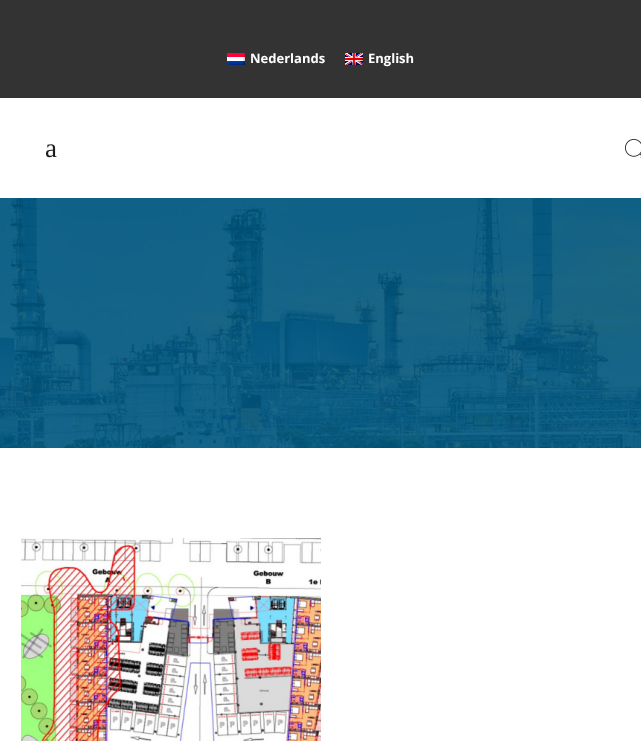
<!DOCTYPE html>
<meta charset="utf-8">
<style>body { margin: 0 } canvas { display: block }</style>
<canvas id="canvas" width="641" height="741"></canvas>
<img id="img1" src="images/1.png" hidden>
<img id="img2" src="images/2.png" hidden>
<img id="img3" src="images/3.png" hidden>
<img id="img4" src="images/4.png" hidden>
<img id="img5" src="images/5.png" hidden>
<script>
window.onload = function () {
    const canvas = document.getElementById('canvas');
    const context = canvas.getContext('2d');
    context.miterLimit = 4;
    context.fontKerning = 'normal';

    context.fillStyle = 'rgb(255, 255, 255)';
    context.fillRect(0, 0, 641, 741);
    context.fillStyle = 'rgb(51, 51, 51)';
    context.fillRect(0, 0, 641, 98);
    context.drawImage(document.getElementById('img1'), 227, 53, 18, 12);
    context.drawImage(document.getElementById('img2'), 345, 53, 18, 12);
    context.drawImage(document.getElementById('img3'), 625, 139, 16, 19);
    context.drawImage(document.getElementById('img4'), 0, 198, 641, 250);
    context.drawImage(document.getElementById('img5'), 21, 538, 300, 203);
    context.font = 'bold 13px Open Sans';
    context.fillStyle = 'rgb(255, 255, 255)';
    context.fillText('Nederlands', 250, 63);
    context.fillText('English', 368, 63);
    context.font = '27px Liberation Serif';
    context.fillStyle = 'rgb(30, 30, 30)';
    context.fillText('a', 45, 157);
};
</script>
